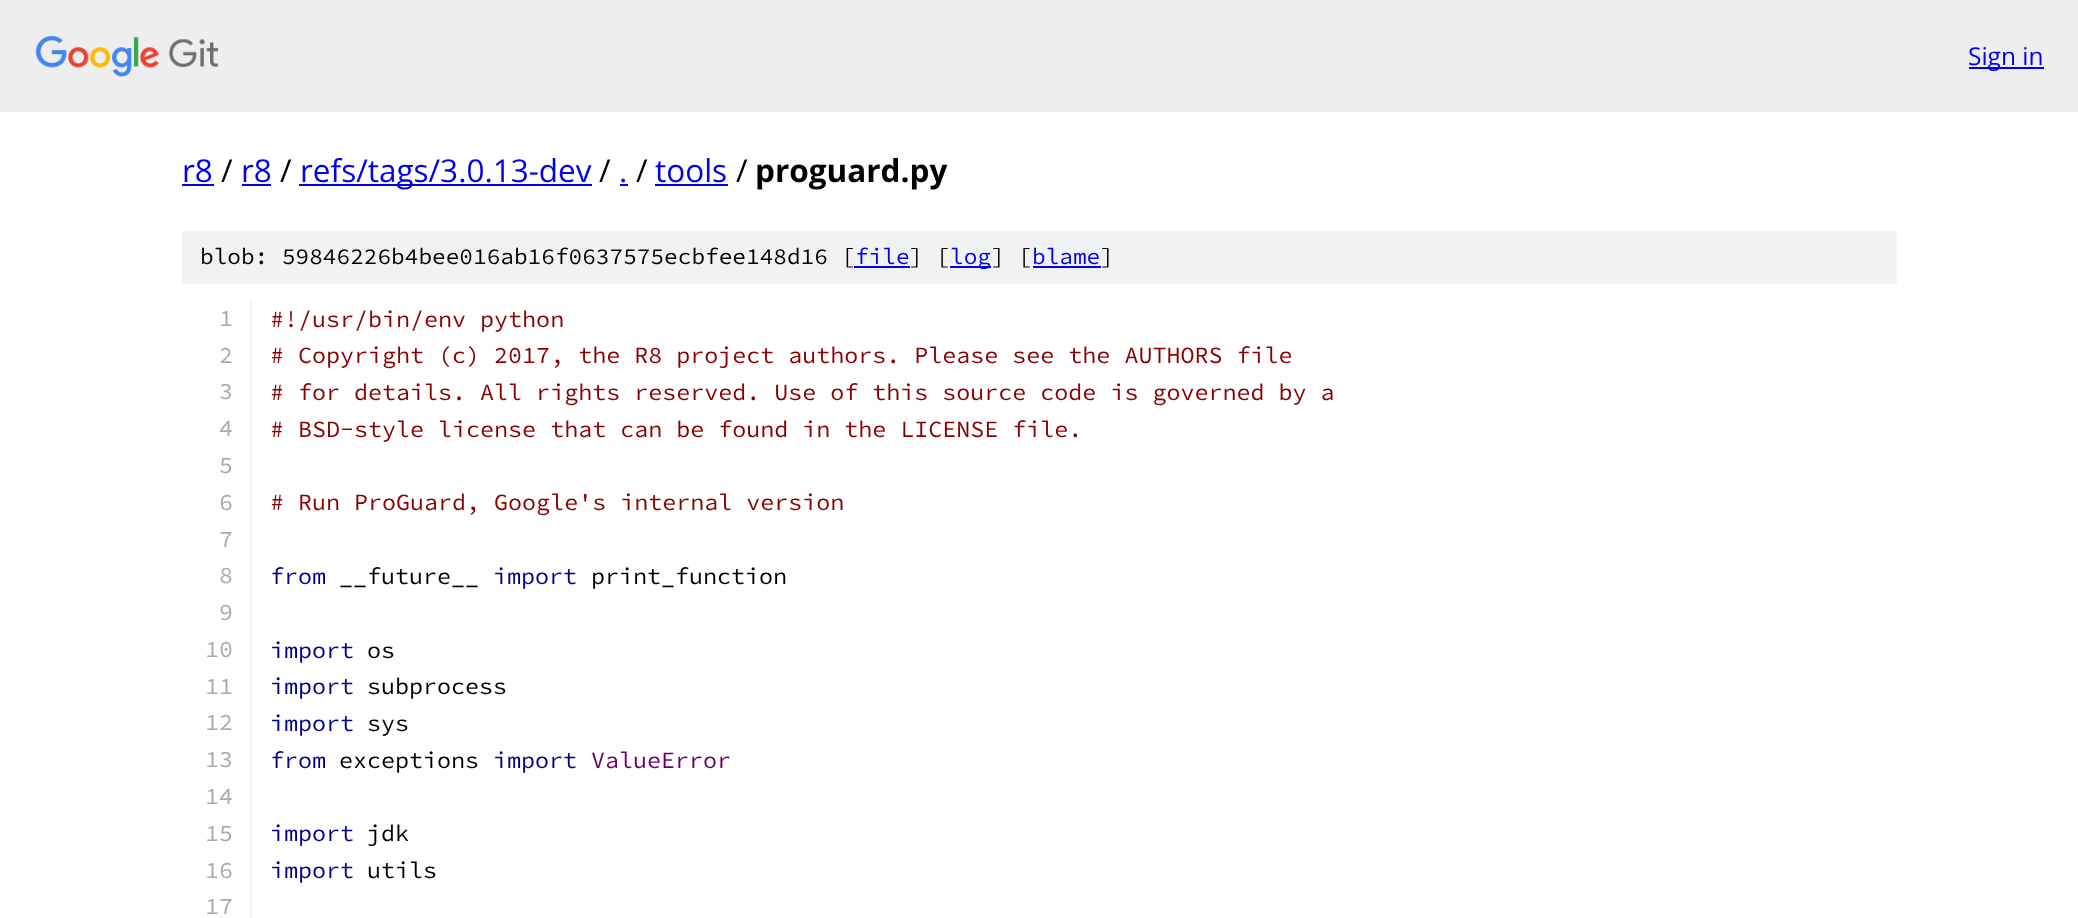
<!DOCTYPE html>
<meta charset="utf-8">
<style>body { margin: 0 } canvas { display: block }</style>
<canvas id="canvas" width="2078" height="918"></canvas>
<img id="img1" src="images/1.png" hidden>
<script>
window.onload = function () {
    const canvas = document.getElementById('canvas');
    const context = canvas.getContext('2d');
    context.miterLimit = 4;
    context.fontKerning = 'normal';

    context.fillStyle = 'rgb(255, 255, 255)';
    context.fillRect(0, 0, 2078, 918);
    context.fillStyle = 'rgb(238, 238, 238)';
    context.fillRect(0, 0, 2078, 112);
    context.drawImage(document.getElementById('img1'), 35, 35, 183, 42);
    context.fillStyle = 'rgb(0, 0, 238)';
    context.fillRect(1969, 67, 75, 2);
    context.fillRect(182, 184, 32, 2);
    context.fillRect(242, 184, 29, 2);
    context.fillRect(299, 184, 293, 2);
    context.fillRect(620, 184, 8, 2);
    context.fillRect(655, 184, 73, 2);
    context.fillStyle = 'rgb(241, 242, 243)';
    context.fillRect(182, 231, 1715, 53);
    context.fillStyle = 'rgb(0, 0, 238)';
    context.fillRect(854, 266, 56, 2);
    context.fillRect(950, 266, 41, 2);
    context.fillRect(1033, 266, 68, 2);
    context.fillStyle = 'rgb(241, 242, 243)';
    context.fillRect(250, 301, 2, 617);
    context.font = '24.5px Open Sans';
    context.fillStyle = 'rgb(0, 0, 238)';
    context.fillText('Sign in', 1968, 65);
    context.font = '31.5px Open Sans';
    context.fillText('r8', 182, 182);
    context.fillStyle = 'rgb(0, 0, 0)';
    context.fillText('/', 221, 182);
    context.fillStyle = 'rgb(0, 0, 238)';
    context.fillText('r8', 241, 182);
    context.fillStyle = 'rgb(0, 0, 0)';
    context.fillText('/', 280, 182);
    context.fillStyle = 'rgb(0, 0, 238)';
    context.fillText('refs/tags/3.0.13-dev', 300, 182);
    context.fillStyle = 'rgb(0, 0, 0)';
    context.fillText('/', 599, 182);
    context.fillStyle = 'rgb(0, 0, 238)';
    context.fillText('.', 619, 182);
    context.fillStyle = 'rgb(0, 0, 0)';
    context.fillText('/', 636, 182);
    context.fillStyle = 'rgb(0, 0, 238)';
    context.fillText('tools', 655, 182);
    context.fillStyle = 'rgb(0, 0, 0)';
    context.fillText('/', 736, 182);
    context.font = 'bold 31.5px Open Sans';
    context.fillText('proguard.py', 755, 182);
    context.font = '200 22.75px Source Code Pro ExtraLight';
    context.fillText('blob: 59846226b4bee016ab16f0637575ecbfee148d16 [', 200, 264);
    context.fillStyle = 'rgb(0, 0, 238)';
    context.fillText('file', 855, 264);
    context.fillStyle = 'rgb(0, 0, 0)';
    context.fillText('] [', 909, 264);
    context.fillStyle = 'rgb(0, 0, 238)';
    context.fillText('log', 950, 264);
    context.fillStyle = 'rgb(0, 0, 0)';
    context.fillText('] [', 991, 264);
    context.fillStyle = 'rgb(0, 0, 238)';
    context.fillText('blame', 1032, 264);
    context.fillStyle = 'rgb(0, 0, 0)';
    context.fillText(']', 1100, 264);
    context.font = '200 23.35px Source Code Pro ExtraLight';
    context.fillStyle = 'rgb(170, 170, 170)';
    context.fillText('1', 219, 326);
    context.fillStyle = 'rgb(136, 0, 0)';
    context.fillText('#!/usr/bin/env python', 270, 327);
    context.fillStyle = 'rgb(170, 170, 170)';
    context.fillText('2', 219, 363);
    context.fillStyle = 'rgb(136, 0, 0)';
    context.fillText('# Copyright (c) 2017, the R8 project authors. Please see the AUTHORS file', 270, 363);
    context.fillStyle = 'rgb(170, 170, 170)';
    context.fillText('3', 219, 399);
    context.fillStyle = 'rgb(136, 0, 0)';
    context.fillText('# for details. All rights reserved. Use of this source code is governed by a', 270, 400);
    context.fillStyle = 'rgb(170, 170, 170)';
    context.fillText('4', 219, 436);
    context.fillStyle = 'rgb(136, 0, 0)';
    context.fillText('# BSD-style license that can be found in the LICENSE file.', 270, 437);
    context.fillStyle = 'rgb(170, 170, 170)';
    context.fillText('5', 219, 473);
    context.fillText('6', 219, 510);
    context.fillStyle = 'rgb(136, 0, 0)';
    context.fillText('# Run ProGuard, Google\'s internal version', 270, 510);
    context.fillStyle = 'rgb(170, 170, 170)';
    context.fillText('7', 219, 547);
    context.fillText('8', 219, 583);
    context.fillStyle = 'rgb(0, 0, 136)';
    context.fillText('from', 270, 584);
    context.fillStyle = 'rgb(0, 0, 0)';
    context.fillText('__future__', 339, 584);
    context.fillStyle = 'rgb(0, 0, 136)';
    context.fillText('import', 493, 584);
    context.fillStyle = 'rgb(0, 0, 0)';
    context.fillText('print_function', 591, 584);
    context.fillStyle = 'rgb(170, 170, 170)';
    context.fillText('9', 219, 620);
    context.fillText('10', 205, 657);
    context.fillStyle = 'rgb(0, 0, 136)';
    context.fillText('import', 270, 658);
    context.fillStyle = 'rgb(0, 0, 0)';
    context.fillText('os', 367, 658);
    context.fillStyle = 'rgb(170, 170, 170)';
    context.fillText('11', 205, 694);
    context.fillStyle = 'rgb(0, 0, 136)';
    context.fillText('import', 270, 694);
    context.fillStyle = 'rgb(0, 0, 0)';
    context.fillText('subprocess', 367, 694);
    context.fillStyle = 'rgb(170, 170, 170)';
    context.fillText('12', 205, 730);
    context.fillStyle = 'rgb(0, 0, 136)';
    context.fillText('import', 270, 731);
    context.fillStyle = 'rgb(0, 0, 0)';
    context.fillText('sys', 367, 731);
    context.fillStyle = 'rgb(170, 170, 170)';
    context.fillText('13', 205, 767);
    context.fillStyle = 'rgb(0, 0, 136)';
    context.fillText('from', 270, 768);
    context.fillStyle = 'rgb(0, 0, 0)';
    context.fillText('exceptions', 339, 768);
    context.fillStyle = 'rgb(0, 0, 136)';
    context.fillText('import', 493, 768);
    context.fillStyle = 'rgb(102, 0, 102)';
    context.fillText('ValueError', 591, 768);
    context.fillStyle = 'rgb(170, 170, 170)';
    context.fillText('14', 205, 804);
    context.fillText('15', 205, 841);
    context.fillStyle = 'rgb(0, 0, 136)';
    context.fillText('import', 270, 841);
    context.fillStyle = 'rgb(0, 0, 0)';
    context.fillText('jdk', 367, 841);
    context.fillStyle = 'rgb(170, 170, 170)';
    context.fillText('16', 205, 878);
    context.fillStyle = 'rgb(0, 0, 136)';
    context.fillText('import', 270, 878);
    context.fillStyle = 'rgb(0, 0, 0)';
    context.fillText('utils', 367, 878);
    context.fillStyle = 'rgb(170, 170, 170)';
    context.fillText('17', 205, 914);
};
</script>
